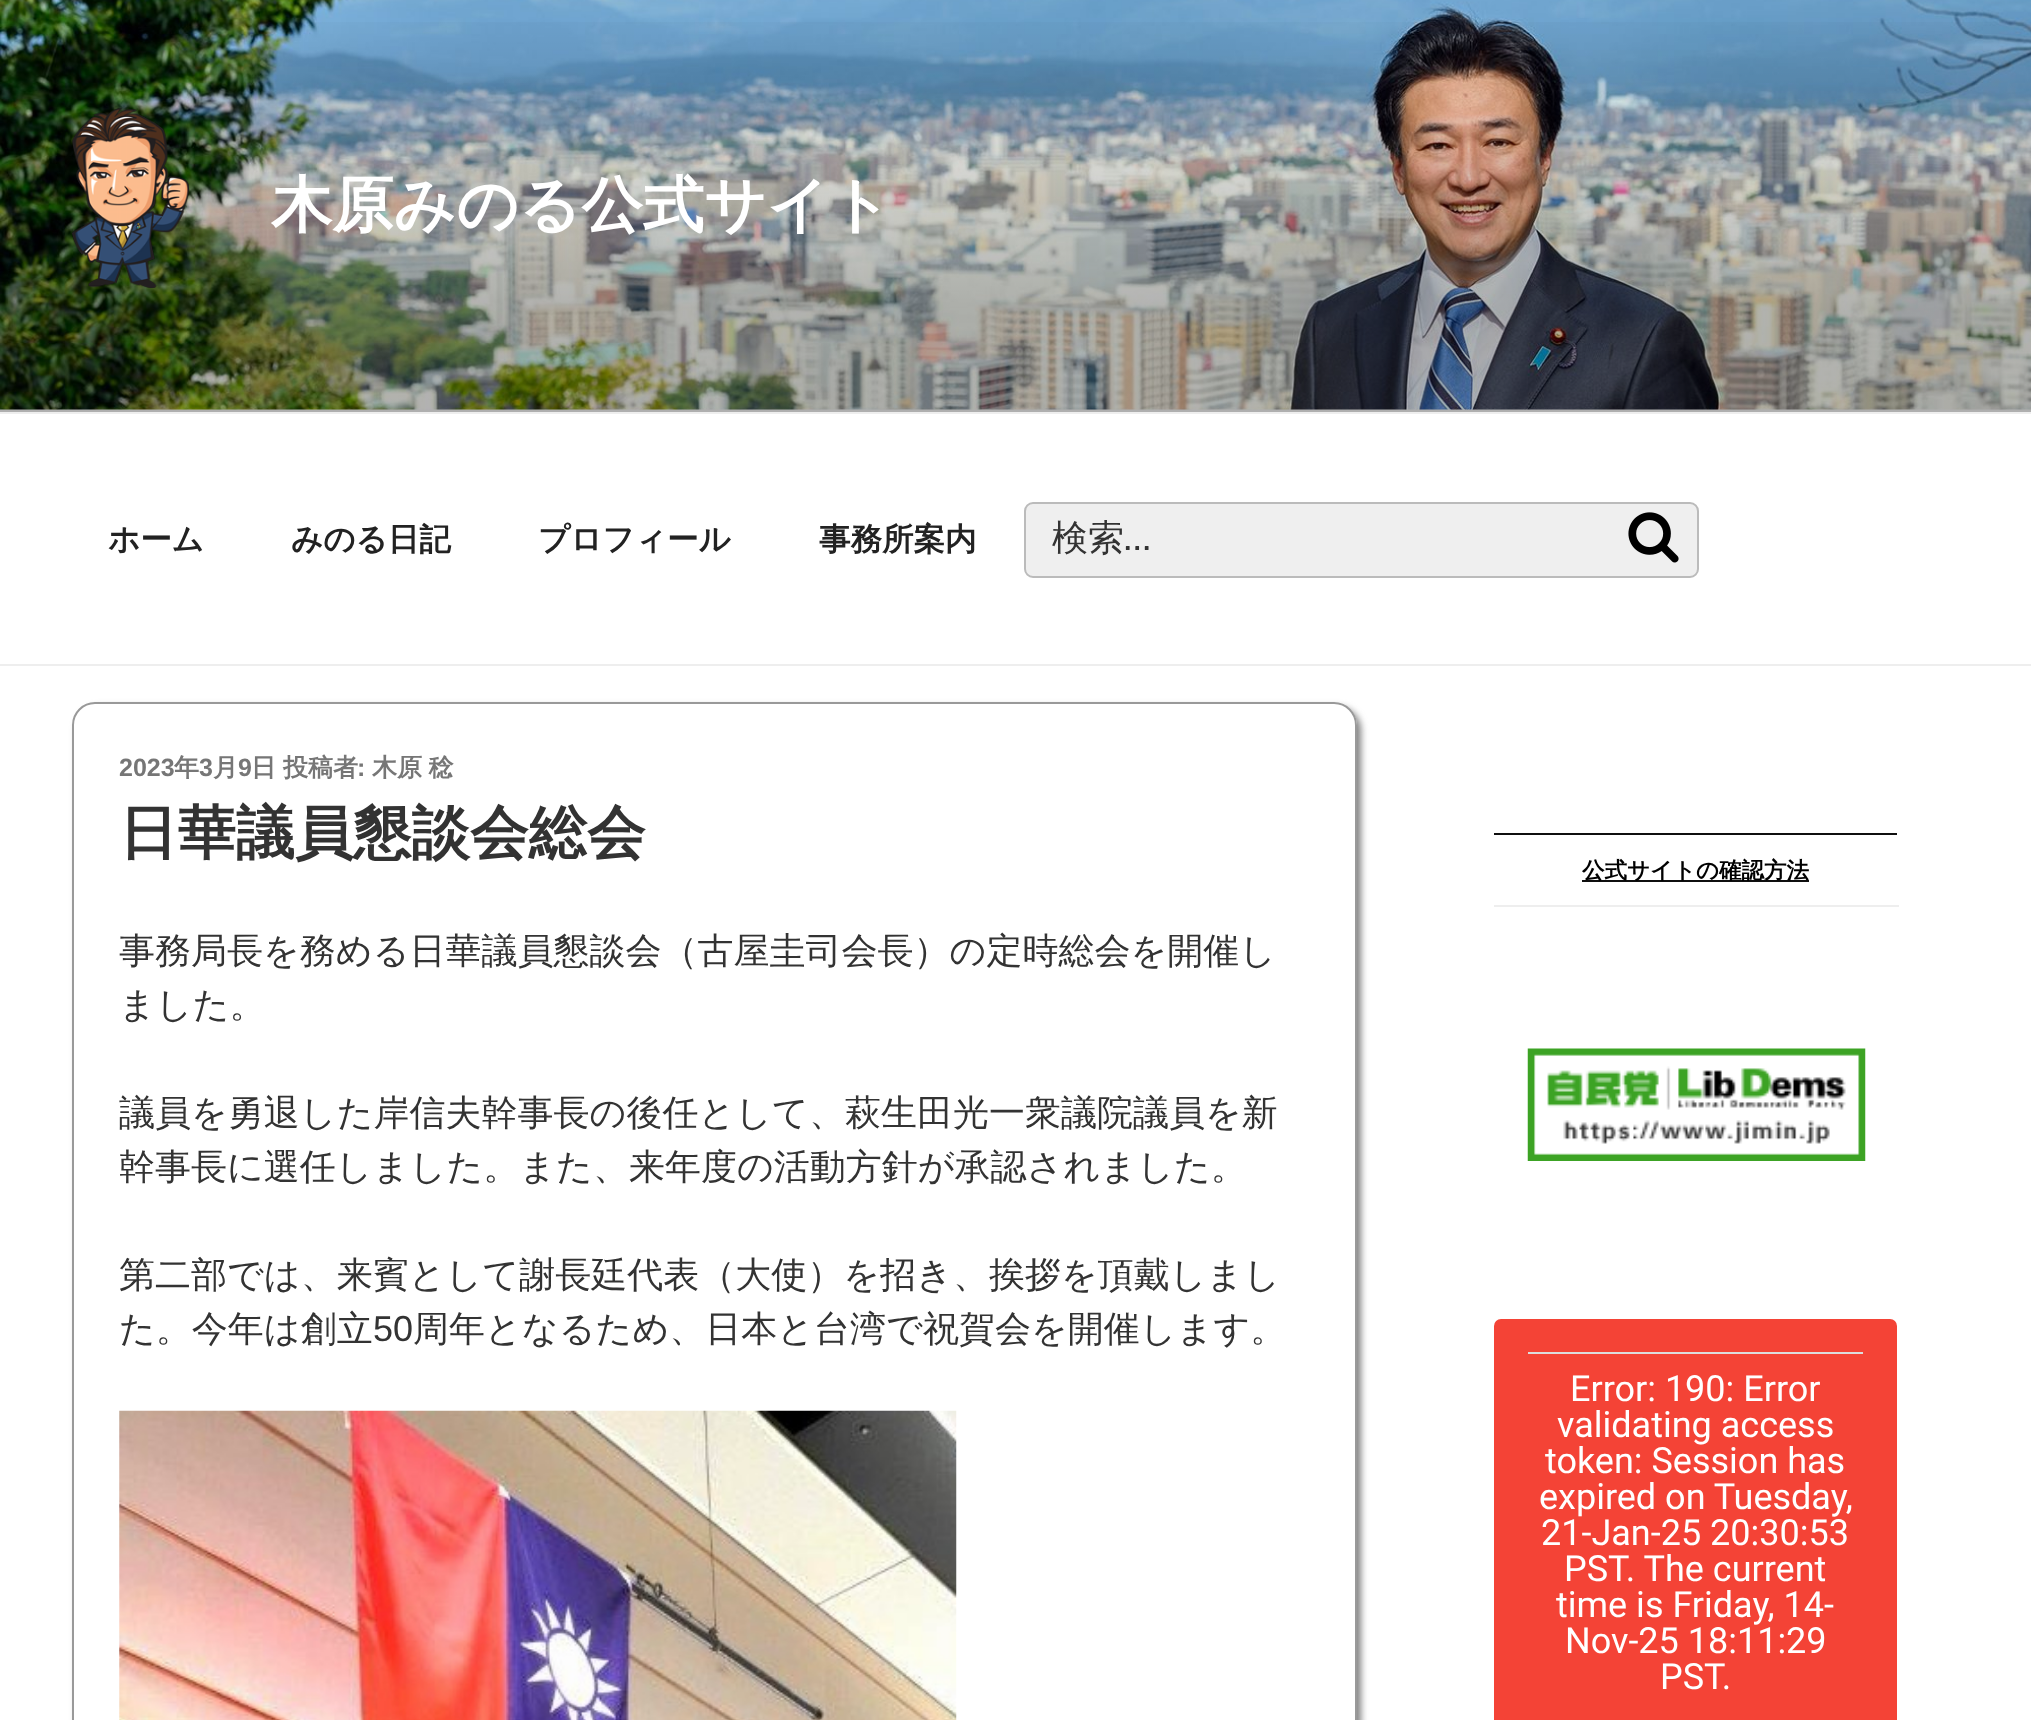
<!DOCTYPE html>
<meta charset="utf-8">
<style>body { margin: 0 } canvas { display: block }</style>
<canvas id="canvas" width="2031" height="1720"></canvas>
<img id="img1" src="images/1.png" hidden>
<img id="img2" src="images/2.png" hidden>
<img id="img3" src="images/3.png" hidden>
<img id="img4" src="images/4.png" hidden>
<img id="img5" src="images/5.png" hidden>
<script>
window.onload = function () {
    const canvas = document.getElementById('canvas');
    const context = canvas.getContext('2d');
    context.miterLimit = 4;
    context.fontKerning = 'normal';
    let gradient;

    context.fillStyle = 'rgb(255, 255, 255)';
    context.fillRect(0, 0, 2031, 1720);
    context.fillStyle = 'rgb(250, 250, 250)';
    context.fillRect(0, 409, 2031, 3);
    context.drawImage(document.getElementById('img1'), 0, 0, 2031, 410);
    gradient = context.createLinearGradient(1016, 0, 1016, 412);
    gradient.addColorStop(0, 'rgba(0, 0, 0, 0)');
    gradient.addColorStop(0.75, 'rgba(0, 0, 0, 0.3)');
    gradient.addColorStop(1, 'rgba(0, 0, 0, 0.3)');
    context.fillStyle = gradient;
    context.fillRect(0, 22, 2031, 390);
    context.drawImage(document.getElementById('img2'), 72, 108, 117, 180);
    context.fillStyle = 'rgb(238, 238, 238)';
    context.fillRect(0, 412, 2031, 2);
    context.fillRect(0, 664, 2031, 2);
    context.fillStyle = 'rgb(239, 239, 239)';
    context.beginPath();
    context.roundRect(1025, 503, 673, 74, 8);
    context.fill();
    context.strokeStyle = 'rgb(187, 187, 187)';
    context.lineWidth = 2;
    context.stroke();
    context.drawImage(document.getElementById('img3'), 1628, 512, 51, 51);
    context.save();
    context.beginPath();
    context.moveTo(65, 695);
    context.lineTo(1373, 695);
    context.lineTo(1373, 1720);
    context.lineTo(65, 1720);
    context.closePath();
    context.moveTo(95, 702);
    context.lineTo(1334, 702);
    context.bezierCurveTo(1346.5, 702, 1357, 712.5, 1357, 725);
    context.lineTo(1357, 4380);
    context.bezierCurveTo(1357, 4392.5, 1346.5, 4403, 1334, 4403);
    context.lineTo(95, 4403);
    context.bezierCurveTo(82.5, 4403, 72, 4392.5, 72, 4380);
    context.lineTo(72, 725);
    context.bezierCurveTo(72, 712.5, 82.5, 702, 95, 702);
    context.closePath();
    context.clip('evenodd');
    context.fillStyle = 'rgb(128, 128, 128)';
    context.filter = 'blur(3.5px)';
    context.beginPath();
    context.roundRect(77, 707, 1284, 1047, 23);
    context.fill();
    context.filter = 'none';
    context.restore();
    context.beginPath();
    context.roundRect(73, 703, 1283, 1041, 22);
    context.strokeStyle = 'rgb(153, 153, 153)';
    context.stroke();
    context.drawImage(document.getElementById('img4'), 119, 1410, 838, 310);
    context.fillStyle = 'rgb(238, 238, 238)';
    context.fillRect(1494, 905, 405, 2);
    context.fillStyle = 'rgb(15, 15, 15)';
    context.fillRect(1494, 833, 403, 2);
    context.fillRect(1582, 880, 227, 2);
    context.drawImage(document.getElementById('img5'), 1527, 1048, 339, 113);
    context.fillStyle = 'rgb(244, 67, 54)';
    context.beginPath();
    context.roundRect(1494, 1319, 403, 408, 7);
    context.fill();
    context.fillStyle = 'rgb(221, 221, 221)';
    context.fillRect(1528, 1352, 335, 2);
    context.font = 'bold 61.25px WenQuanYi Zen Hei';
    context.fillStyle = 'rgb(255, 255, 255)';
    context.fillText('木原みのる公式サイト', 271, 226);
    context.font = 'bold 31.5px WenQuanYi Zen Hei';
    context.fillStyle = 'rgb(34, 34, 34)';
    context.fillText('ホーム', 108, 550);
    context.fillText('みのる日記', 291, 550);
    context.fillText('プロフィール', 538, 550);
    context.fillText('事務所案内', 819, 550);
    context.font = '500 36px WenQuanYi Zen Hei';
    context.fillStyle = 'rgb(51, 51, 51)';
    context.fillText('検索', 1052, 550);
    context.font = '36px Libre Franklin';
    context.fillText('…', 1124, 550);
    context.font = 'bold 25px Liberation Sans';
    context.fillStyle = 'rgb(118, 118, 118)';
    context.fillText('2023', 119, 776);
    context.font = 'bold 25px WenQuanYi Zen Hei';
    context.fillText('年', 174, 776);
    context.font = 'bold 25px Liberation Sans';
    context.fillText('3', 199, 776);
    context.font = 'bold 25px WenQuanYi Zen Hei';
    context.fillText('月', 213, 776);
    context.font = 'bold 25px Liberation Sans';
    context.fillText('9', 238, 776);
    context.font = 'bold 25px WenQuanYi Zen Hei';
    context.fillText('日', 251, 776);
    context.fillText('投稿者', 283, 776);
    context.font = 'bold 25px Liberation Sans';
    context.fillText(':', 357, 776);
    context.wordSpacing = '-1px';
    context.font = 'bold 25px WenQuanYi Zen Hei';
    context.fillText('木原 稔', 372, 776);
    context.wordSpacing = '0px';
    context.font = 'bold 58.5px WenQuanYi Zen Hei';
    context.fillStyle = 'rgb(51, 51, 51)';
    context.fillText('日華議員懇談会総会', 119, 853);
    context.font = '500 36px WenQuanYi Zen Hei';
    context.fillText('事務局長を務める日華議員懇談会（古屋圭司会長）の定時総会を開催し', 119, 963);
    context.fillText('ました。', 119, 1017);
    context.fillText('議員を勇退した岸信夫幹事長の後任として、萩生田光一衆議院議員を新', 119, 1125);
    context.fillText('幹事長に選任しました。また、来年度の活動方針が承認されました。', 119, 1179);
    context.fillText('第二部では、来賓として謝長廷代表（大使）を招き、挨拶を頂戴しまし', 119, 1287);
    context.fillText('た。今年は創立', 119, 1341);
    context.font = '36px Liberation Sans';
    context.fillText('50', 373, 1341);
    context.font = '500 36px WenQuanYi Zen Hei';
    context.fillText('周年となるため、日本と台湾で祝賀会を開催します。', 413, 1341);
    context.font = 'bold 22.5px WenQuanYi Zen Hei';
    context.fillStyle = 'rgb(0, 0, 0)';
    context.fillText('公式サイトの確認方法', 1582, 878);
    context.font = '36px Roboto';
    context.fillStyle = 'rgb(255, 255, 255)';
    context.fillText('Error: 190: Error', 1570, 1401);
    context.fillText('validating access', 1557, 1437);
    context.fillText('token: Session has', 1545, 1473);
    context.fillText('expired on Tuesday,', 1539, 1509);
    context.fillText('21-Jan-25 20:30:53', 1541, 1545);
    context.fillText('PST. The current', 1564, 1581);
    context.fillText('time is Friday, 14-', 1556, 1617);
    context.fillText('Nov-25 18:11:29', 1565, 1653);
    context.fillText('PST.', 1660, 1689);
};
</script>
